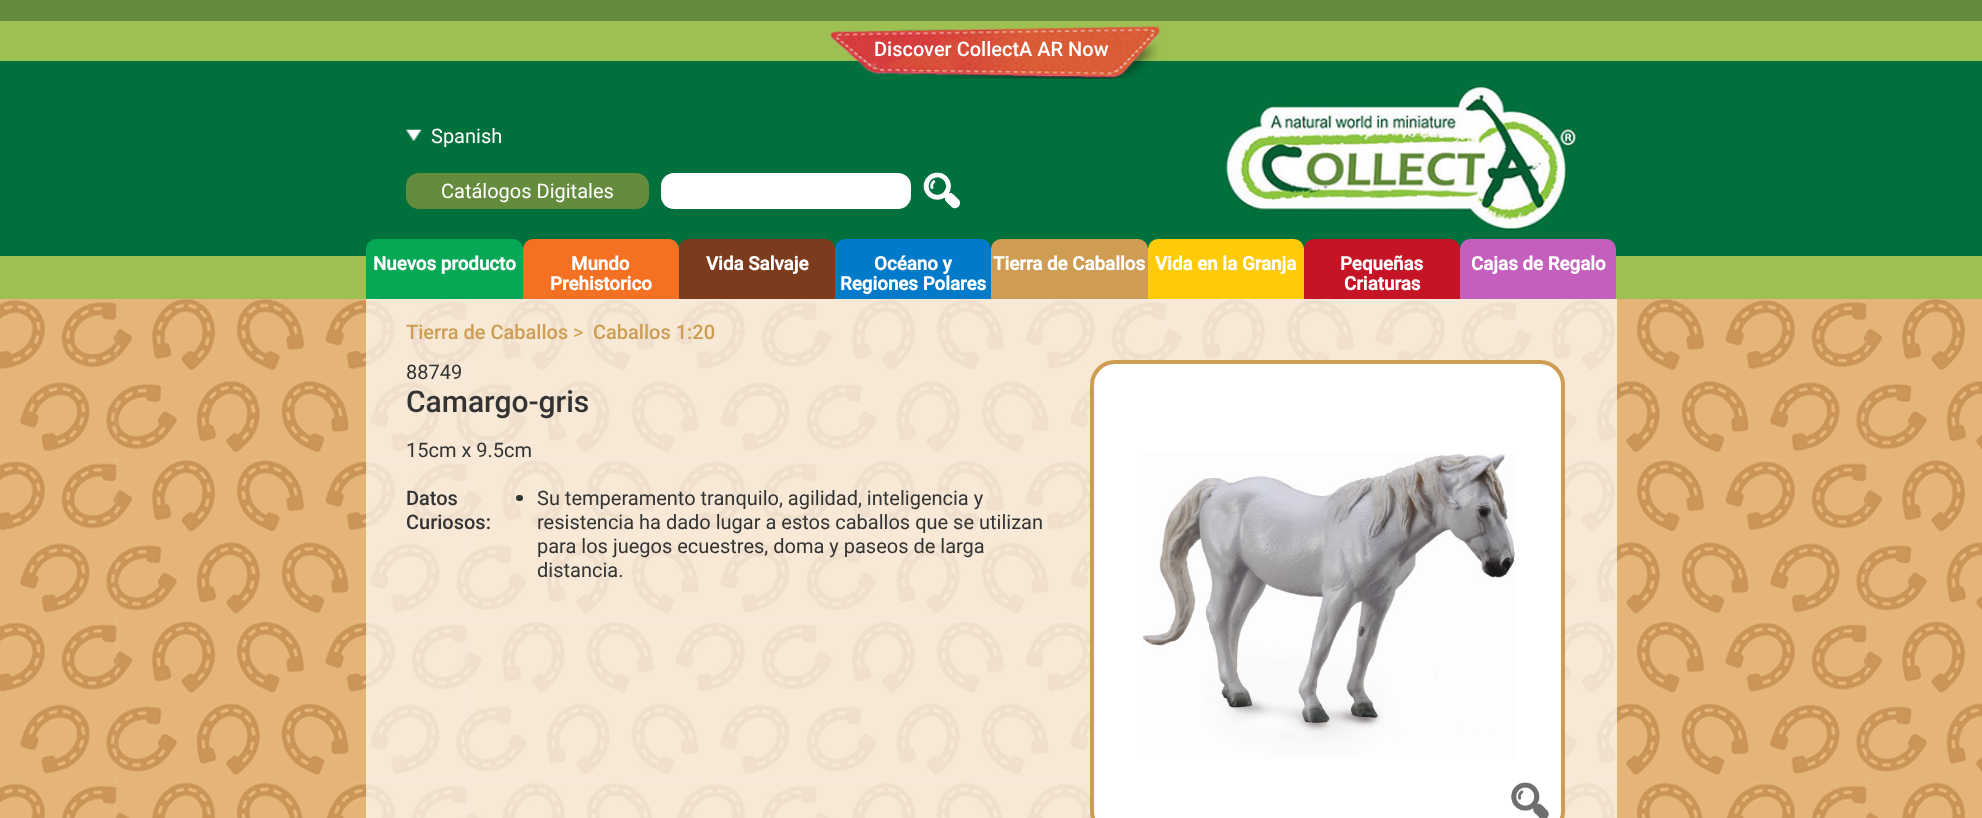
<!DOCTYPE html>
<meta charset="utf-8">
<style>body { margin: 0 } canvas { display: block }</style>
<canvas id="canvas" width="1982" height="818"></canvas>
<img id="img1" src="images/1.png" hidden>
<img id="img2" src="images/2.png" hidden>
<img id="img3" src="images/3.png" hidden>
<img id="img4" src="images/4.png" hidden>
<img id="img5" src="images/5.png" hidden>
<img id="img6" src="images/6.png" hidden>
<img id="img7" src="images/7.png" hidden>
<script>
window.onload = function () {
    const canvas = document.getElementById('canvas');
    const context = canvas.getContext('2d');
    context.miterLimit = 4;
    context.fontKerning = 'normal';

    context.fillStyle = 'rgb(101, 139, 62)';
    context.fillRect(0, 0, 1982, 818);
    context.fillStyle = 'rgb(158, 192, 82)';
    context.fillRect(0, 21, 1982, 40);
    context.fillStyle = 'rgb(0, 112, 60)';
    context.fillRect(0, 61, 1982, 195);
    context.drawImage(document.getElementById('img1'), 830, 26, 331, 53);
    context.drawImage(document.getElementById('img2'), 406, 129, 16, 12);
    context.fillStyle = 'rgb(101, 139, 62)';
    context.beginPath();
    context.roundRect(406, 173, 243, 36, 13);
    context.fill();
    context.fillStyle = 'rgb(255, 255, 255)';
    context.beginPath();
    context.roundRect(661, 173, 250, 36, 13);
    context.fill();
    context.drawImage(document.getElementById('img3'), 923, 172, 37, 37);
    context.drawImage(document.getElementById('img4'), 1226, 86, 351, 145);
    context.fillStyle = 'rgb(158, 192, 82)';
    context.fillRect(0, 256, 1982, 43);
    context.fillStyle = 'rgb(6, 167, 85)';
    context.beginPath();
    context.roundRect(366, 239, 157, 60, [10, 10, 0, 0]);
    context.fill();
    context.fillStyle = 'rgb(244, 112, 34)';
    context.beginPath();
    context.roundRect(523, 239, 156, 60, [10, 10, 0, 0]);
    context.fill();
    context.fillStyle = 'rgb(124, 59, 28)';
    context.beginPath();
    context.roundRect(679, 239, 156, 60, [10, 10, 0, 0]);
    context.fill();
    context.fillStyle = 'rgb(0, 122, 201)';
    context.beginPath();
    context.roundRect(835, 239, 156, 60, [10, 10, 0, 0]);
    context.fill();
    context.fillStyle = 'rgb(206, 157, 83)';
    context.beginPath();
    context.roundRect(991, 239, 157, 60, [10, 10, 0, 0]);
    context.fill();
    context.fillStyle = 'rgb(255, 203, 8)';
    context.beginPath();
    context.roundRect(1148, 239, 156, 60, [10, 10, 0, 0]);
    context.fill();
    context.fillStyle = 'rgb(196, 20, 38)';
    context.beginPath();
    context.roundRect(1304, 239, 156, 60, [10, 10, 0, 0]);
    context.fill();
    context.fillStyle = 'rgb(197, 95, 189)';
    context.beginPath();
    context.roundRect(1460, 239, 156, 60, [10, 10, 0, 0]);
    context.fill();
    context.drawImage(document.getElementById('img5'), 0, 299, 1982, 519);
    context.fillStyle = 'rgba(255, 255, 255, 0.7)';
    context.fillRect(366, 299, 1251, 519);
    context.fillStyle = 'rgb(51, 51, 51)';
    context.beginPath();
    context.roundRect(516, 495, 7, 6, 3);
    context.fill();
    context.fillStyle = 'rgb(255, 255, 255)';
    context.beginPath();
    context.roundRect(1092, 362, 471, 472, 23);
    context.fill();
    context.strokeStyle = 'rgb(206, 157, 83)';
    context.lineWidth = 4;
    context.stroke();
    context.drawImage(document.getElementById('img6'), 1142, 453, 374, 306);
    context.drawImage(document.getElementById('img7'), 1511, 782, 38, 36);
    context.font = '500 20px Roboto';
    context.fillText('Discover CollectA AR Now', 874, 56);
    context.font = '20px Roboto';
    context.fillText('Spanish', 431, 143);
    context.fillText('Catálogos Digitales', 441, 198);
    context.font = 'bold 18.75px Roboto';
    context.fillText('Nuevos producto', 373, 270);
    context.fillText('Mundo', 571, 270);
    context.fillText('Prehistorico', 550, 290);
    context.fillText('Vida Salvaje', 706, 270);
    context.fillText('Océano y', 874, 270);
    context.fillText('Regiones Polares', 840, 290);
    context.fillText('Tierra de Caballos', 993, 270);
    context.fillText('Vida en la Granja', 1155, 270);
    context.fillText('Pequeñas', 1340, 270);
    context.fillText('Criaturas', 1344, 290);
    context.fillText('Cajas de Regalo', 1471, 270);
    context.font = '500 20px Roboto';
    context.fillStyle = 'rgb(206, 157, 83)';
    context.fillText('Tierra de Caballos', 406, 339);
    context.font = '20px Roboto';
    context.fillText('>', 573, 339);
    context.font = '500 20px Roboto';
    context.fillText('Caballos 1:20', 593, 339);
    context.font = '20px Roboto';
    context.fillStyle = 'rgb(51, 51, 51)';
    context.fillText('88749', 406, 379);
    context.font = '500 30px Roboto';
    context.fillText('Camargo-gris', 406, 412);
    context.font = '20px Roboto';
    context.fillText('15cm x 9.5cm', 406, 457);
    context.font = '500 20px Roboto';
    context.fillText('Datos', 406, 505);
    context.fillText('Curiosos:', 406, 529);
    context.font = '20px Roboto';
    context.fillText('Su temperamento tranquilo, agilidad, inteligencia y', 537, 505);
    context.fillText('resistencia ha dado lugar a estos caballos que se utilizan', 537, 529);
    context.fillText('para los juegos ecuestres, doma y paseos de larga', 537, 553);
    context.fillText('distancia.', 537, 577);
};
</script>
